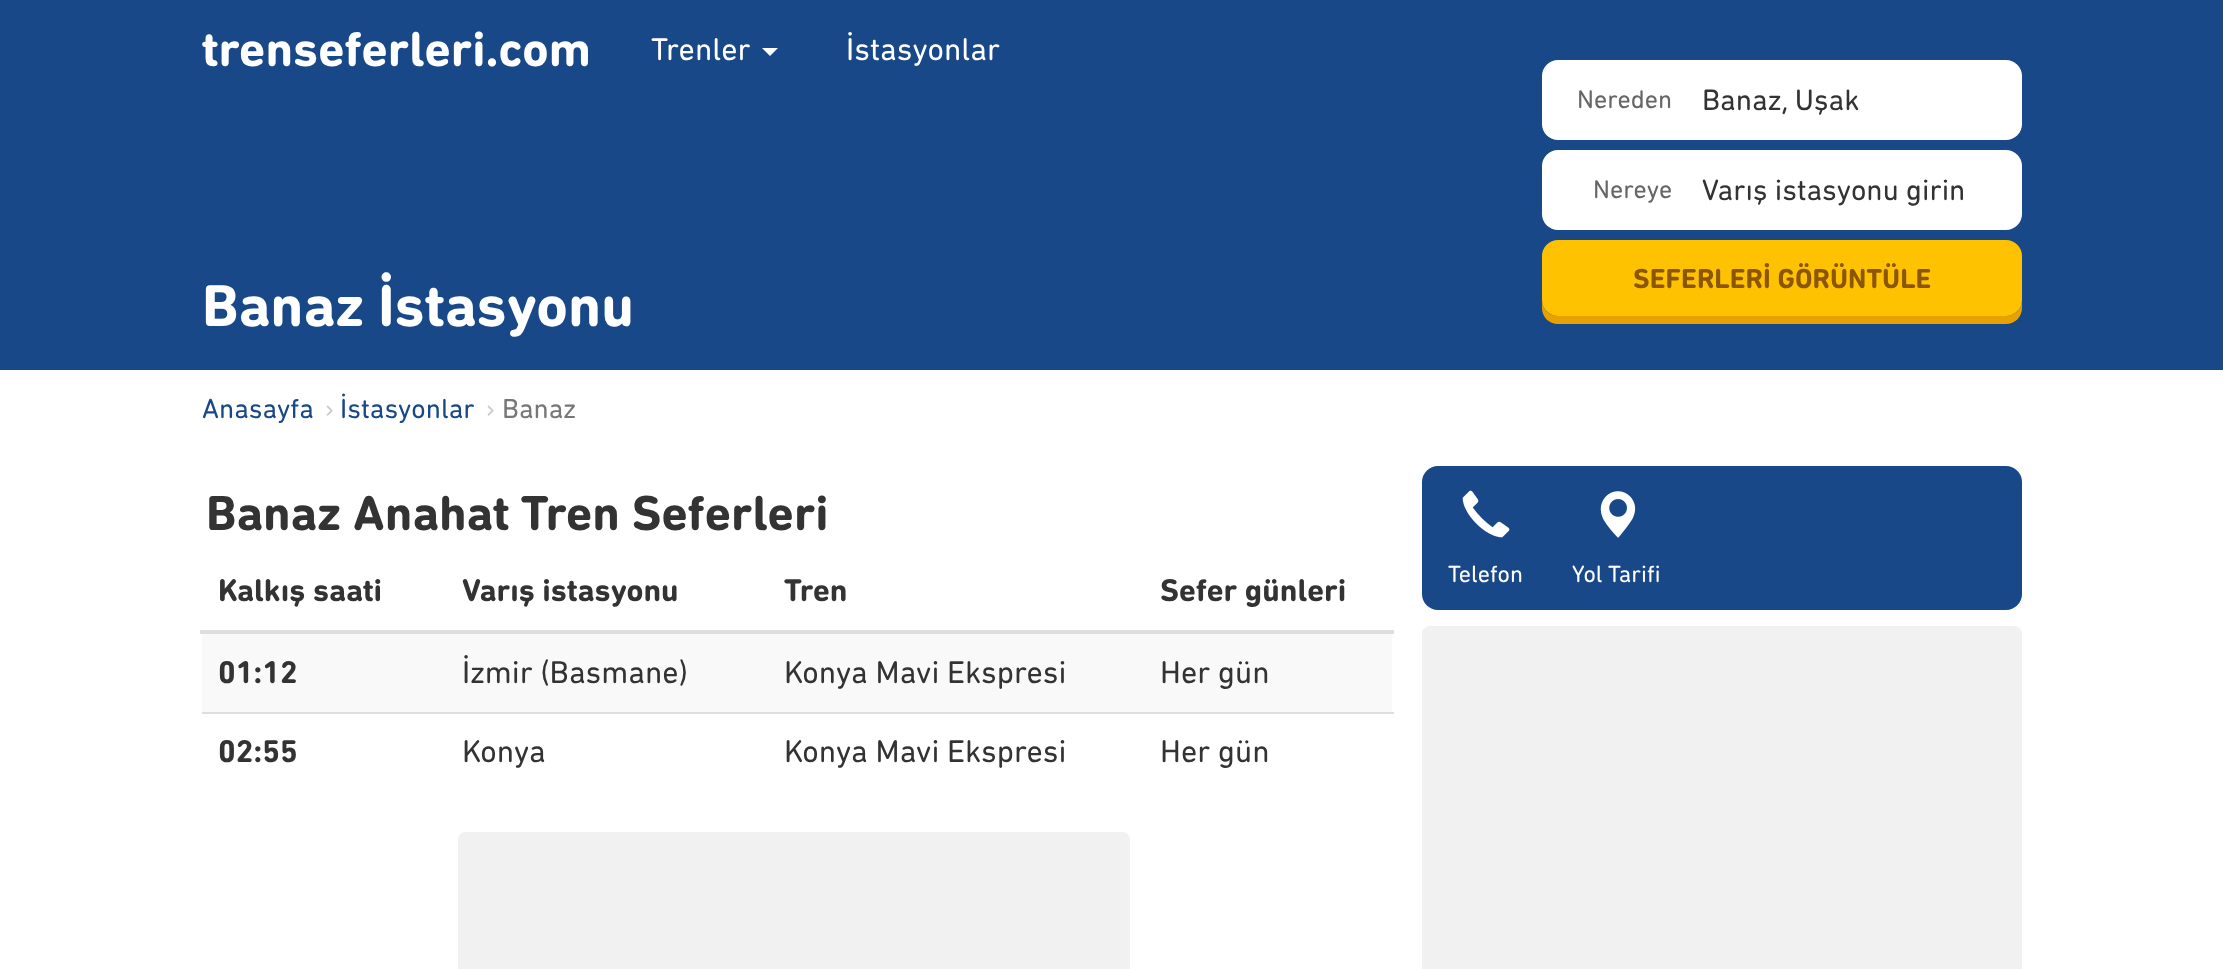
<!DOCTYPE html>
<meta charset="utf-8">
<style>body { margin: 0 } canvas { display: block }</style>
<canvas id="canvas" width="2223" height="969"></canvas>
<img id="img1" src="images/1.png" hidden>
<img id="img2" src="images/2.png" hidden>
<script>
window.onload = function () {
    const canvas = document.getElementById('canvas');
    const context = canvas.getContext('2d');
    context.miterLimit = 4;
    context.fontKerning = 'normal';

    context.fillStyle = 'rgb(255, 255, 255)';
    context.fillRect(0, 0, 2223, 969);
    context.fillStyle = 'rgb(24, 72, 136)';
    context.fillRect(0, 0, 2223, 370);
    context.fillStyle = 'rgb(255, 255, 255)';
    context.beginPath();
    context.moveTo(762, 48);
    context.lineTo(778, 48);
    context.lineTo(770, 56);
    context.closePath();
    context.fill();
    context.beginPath();
    context.roundRect(1542, 60, 480, 80, 16);
    context.fill();
    context.beginPath();
    context.roundRect(1542, 150, 480, 80, 16);
    context.fill();
    context.fillStyle = 'rgb(231, 161, 0)';
    context.beginPath();
    context.moveTo(1542, 300);
    context.lineTo(1542, 308);
    context.bezierCurveTo(1542, 317, 1549, 324, 1558, 324);
    context.lineTo(2006, 324);
    context.bezierCurveTo(2015, 324, 2022, 317, 2022, 308);
    context.lineTo(2022, 300);
    context.bezierCurveTo(2022, 309, 2015, 316, 2006, 316);
    context.lineTo(1558, 316);
    context.bezierCurveTo(1549, 316, 1542, 309, 1542, 300);
    context.closePath();
    context.fill();
    context.fillStyle = 'rgb(255, 194, 0)';
    context.beginPath();
    context.roundRect(1544, 242, 476, 72, 14);
    context.fill();
    context.strokeStyle = 'rgb(255, 194, 0)';
    context.lineWidth = 4;
    context.stroke();
    context.fillStyle = 'rgb(24, 72, 136)';
    context.beginPath();
    context.roundRect(1422, 466, 600, 144, 16);
    context.fill();
    context.drawImage(document.getElementById('img1'), 1462, 490, 48, 48);
    context.drawImage(document.getElementById('img2'), 1600, 491, 36, 47);
    context.fillStyle = 'rgb(221, 221, 221)';
    context.fillRect(200, 630, 1194, 4);
    context.fillStyle = 'rgb(249, 249, 249)';
    context.fillRect(202, 634, 1190, 78);
    context.fillStyle = 'rgb(221, 221, 221)';
    context.fillRect(202, 712, 1192, 2);
    context.fillStyle = 'rgb(241, 241, 241)';
    context.beginPath();
    context.roundRect(1422, 626, 600, 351, 8);
    context.fill();
    context.beginPath();
    context.roundRect(458, 832, 672, 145, 8);
    context.fill();
    context.font = 'bold 50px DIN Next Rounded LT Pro';
    context.fillStyle = 'rgb(255, 255, 255)';
    context.fillText('trenseferleri.com', 202, 66);
    context.font = '32px DIN Next Rounded LT Pro';
    context.fillText('Trenler', 651, 60);
    context.fillText('İstasyonlar', 846, 60);
    context.font = '26px DIN Next Rounded LT Pro';
    context.fillStyle = 'rgb(102, 102, 102)';
    context.fillText('Nereden', 1577, 108);
    context.font = '30px DIN Next Rounded LT Pro';
    context.fillStyle = 'rgb(51, 51, 51)';
    context.fillText('Banaz, Uşak', 1702, 110);
    context.font = '26px DIN Next Rounded LT Pro';
    context.fillStyle = 'rgb(102, 102, 102)';
    context.fillText('Nereye', 1593, 198);
    context.font = '30px DIN Next Rounded LT Pro';
    context.fillStyle = 'rgb(51, 51, 51)';
    context.fillText('Varış istasyonu girin', 1702, 200);
    context.font = 'bold 28px DIN Next Rounded LT Pro';
    context.fillStyle = 'rgb(140, 86, 0)';
    context.fillText('SEFERLERİ GÖRÜNTÜLE', 1633, 288);
    context.font = 'bold 60px DIN Next Rounded LT Pro';
    context.fillStyle = 'rgb(255, 255, 255)';
    context.fillText('Banaz İstasyonu', 202, 326);
    context.font = '28px DIN Next Rounded LT Pro';
    context.fillStyle = 'rgb(24, 72, 136)';
    context.fillText('Anasayfa', 202, 418);
    context.fillStyle = 'rgb(204, 204, 204)';
    context.fillText('›', 325, 418);
    context.fillStyle = 'rgb(24, 72, 136)';
    context.fillText('İstasyonlar', 340, 418);
    context.fillStyle = 'rgb(204, 204, 204)';
    context.fillText('›', 486, 418);
    context.fillStyle = 'rgb(119, 119, 119)';
    context.fillText('Banaz', 502, 418);
    context.font = 'bold 50px DIN Next Rounded LT Pro';
    context.fillStyle = 'rgb(51, 51, 51)';
    context.fillText('Banaz Anahat Tren Seferleri', 206, 530);
    context.font = '24px DIN Next Rounded LT Pro';
    context.fillStyle = 'rgb(255, 255, 255)';
    context.fillText('Telefon', 1448, 582);
    context.fillText('Yol Tarifi', 1572, 582);
    context.font = 'bold 32px DIN Next Rounded LT Pro';
    context.fillStyle = 'rgb(51, 51, 51)';
    context.fillText('Kalkış saati', 218, 601);
    context.fillText('Varış istasyonu', 462, 601);
    context.fillText('Tren', 784, 601);
    context.fillText('Sefer günleri', 1160, 601);
    context.fillText('01:12', 218, 683);
    context.font = '32px DIN Next Rounded LT Pro';
    context.fillText('İzmir (Basmane)', 462, 683);
    context.fillText('Konya Mavi Ekspresi', 784, 683);
    context.fillText('Her gün', 1160, 683);
    context.font = 'bold 32px DIN Next Rounded LT Pro';
    context.fillText('02:55', 218, 762);
    context.font = '32px DIN Next Rounded LT Pro';
    context.fillText('Konya', 462, 762);
    context.fillText('Konya Mavi Ekspresi', 784, 762);
    context.fillText('Her gün', 1160, 762);
};
</script>
